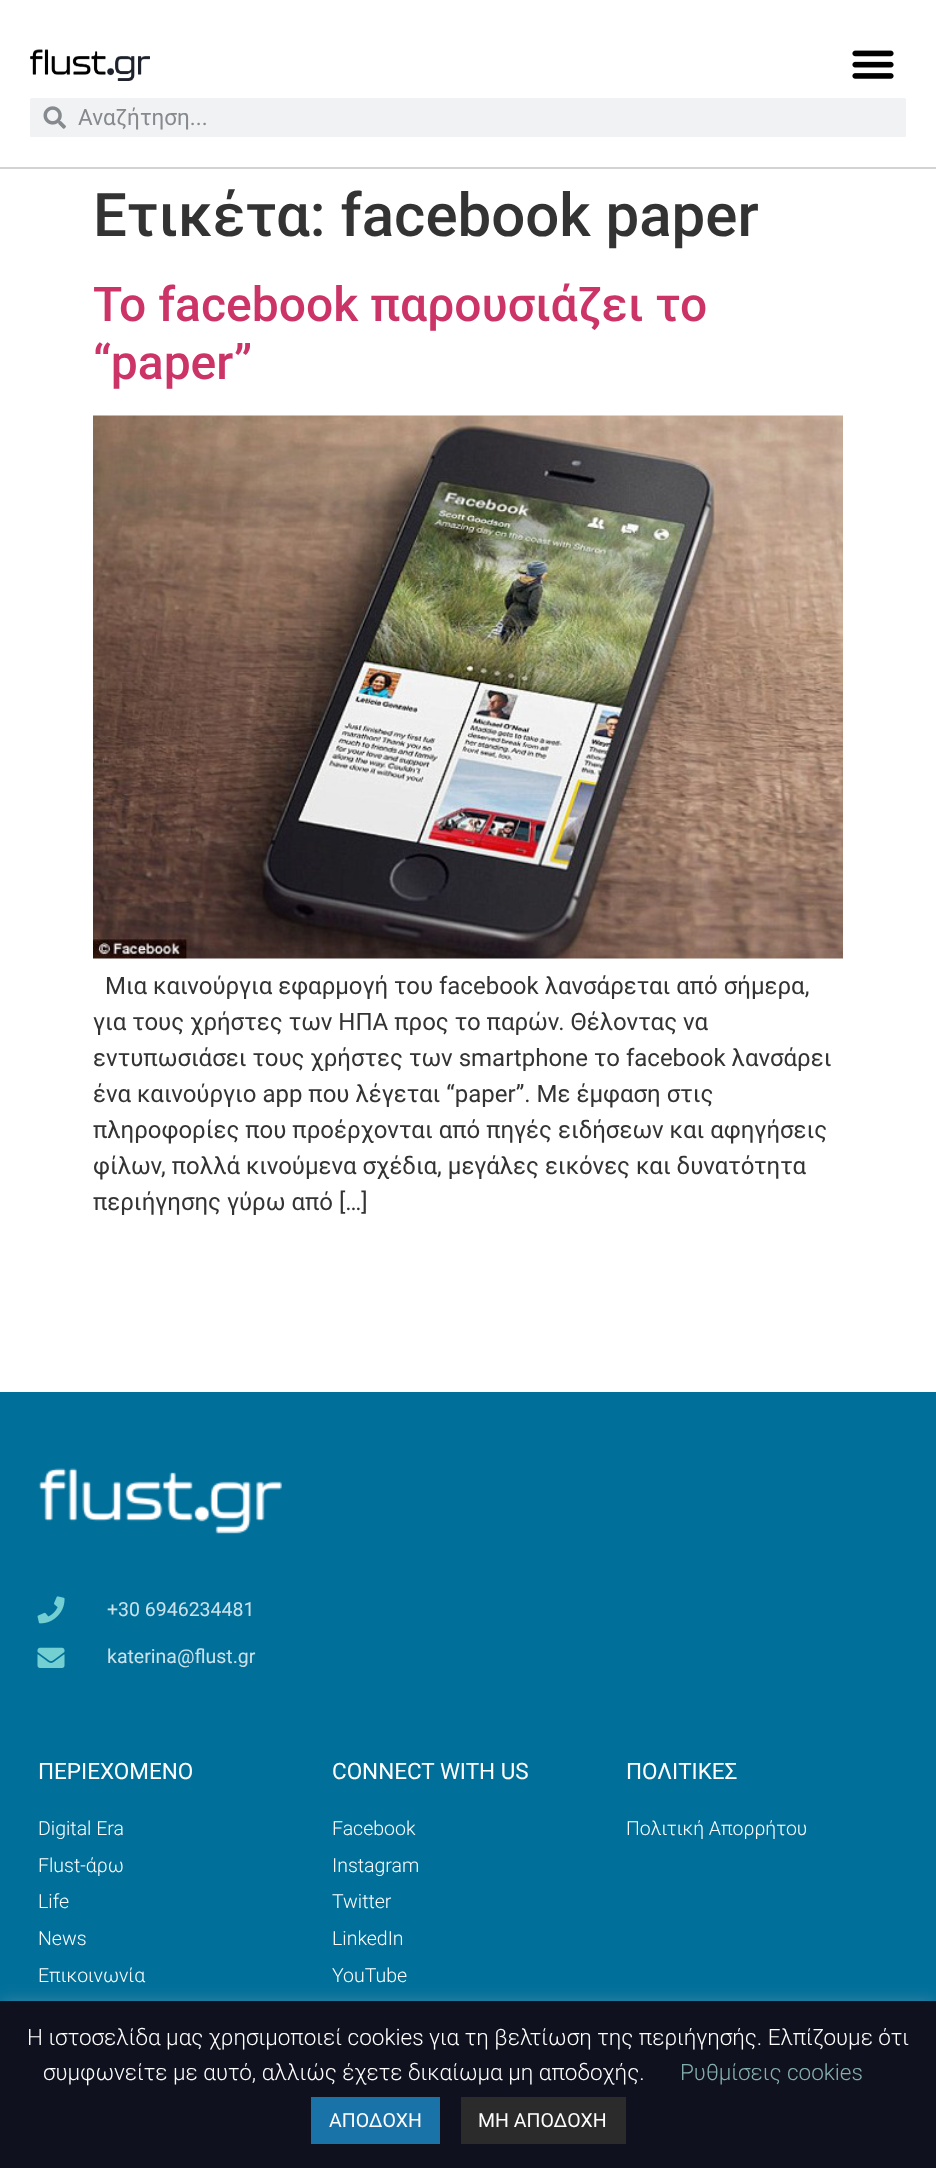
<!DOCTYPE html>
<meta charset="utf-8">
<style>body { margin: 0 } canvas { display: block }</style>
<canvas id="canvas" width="936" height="2168"></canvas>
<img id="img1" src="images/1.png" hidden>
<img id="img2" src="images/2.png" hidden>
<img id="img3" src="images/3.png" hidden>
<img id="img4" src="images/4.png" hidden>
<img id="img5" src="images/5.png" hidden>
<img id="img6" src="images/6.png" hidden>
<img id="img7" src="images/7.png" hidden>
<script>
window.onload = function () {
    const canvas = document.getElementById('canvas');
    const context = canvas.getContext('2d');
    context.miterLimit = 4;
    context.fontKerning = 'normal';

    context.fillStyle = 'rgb(255, 255, 255)';
    context.fillRect(0, 0, 936, 2168);
    context.fillStyle = 'rgb(211, 211, 211)';
    context.fillRect(0, 167, 936, 2);
    context.drawImage(document.getElementById('img1'), 30, 49, 120, 32);
    context.drawImage(document.getElementById('img2'), 852, 50, 42, 29);
    context.fillStyle = 'rgb(241, 242, 243)';
    context.beginPath();
    context.roundRect(30, 98, 876, 39, 1.5);
    context.fill();
    context.drawImage(document.getElementById('img3'), 43, 106, 23, 23);
    context.drawImage(document.getElementById('img4'), 93, 415, 750, 544);
    context.fillStyle = 'rgb(0, 112, 155)';
    context.fillRect(0, 1392, 936, 609);
    context.drawImage(document.getElementById('img5'), 38, 1468, 244, 66);
    context.drawImage(document.getElementById('img6'), 37, 1596, 28, 28);
    context.drawImage(document.getElementById('img7'), 37, 1647, 28, 21);
    context.fillStyle = 'rgba(172, 171, 171, 0.3)';
    context.filter = 'blur(7.5px)';
    context.beginPath();
    context.rect(0, 2000, 936, 168);
    context.fill();
    context.filter = 'none';
    context.fillStyle = 'rgb(15, 17, 30)';
    context.fillRect(0, 2001, 936, 167);
    context.fillStyle = 'rgb(25, 115, 168)';
    context.fillRect(311, 2097, 129, 47);
    context.fillStyle = 'rgb(43, 43, 43)';
    context.fillRect(461, 2097, 165, 47);
    context.font = '22.5px Roboto';
    context.fillStyle = 'rgb(134, 138, 142)';
    context.fillText('Αναζήτηση...', 78, 125);
    context.font = '500 60px Roboto';
    context.fillStyle = 'rgb(51, 51, 51)';
    context.fillText('Ετικέτα: facebook paper', 93, 236);
    context.font = '500 48px Roboto';
    context.fillStyle = 'rgb(204, 51, 102)';
    context.fillText('Το facebook παρουσιάζει το', 93, 321);
    context.fillText('“paper”', 93, 379);
    context.font = '24px Roboto';
    context.fillStyle = 'rgb(51, 51, 51)';
    context.fillText('Μια καινούργια εφαρμογή του facebook λανσάρεται από σήμερα,', 105, 994);
    context.fillText('για τους χρήστες των ΗΠΑ προς το παρών. Θέλοντας να', 93, 1030);
    context.fillText('εντυπωσιάσει τους χρήστες των smartphone το facebook λανσάρει', 93, 1066);
    context.fillText('ένα καινούργιο app που λέγεται “paper”. Με έμφαση στις', 93, 1102);
    context.fillText('πληροφορίες που προέρχονται από πηγές ειδήσεων και αφηγήσεις', 93, 1138);
    context.fillText('φίλων, πολλά κινούμενα σχέδια, μεγάλες εικόνες και δυνατότητα', 93, 1174);
    context.fillText('περιήγησης γύρω από […]', 93, 1210);
    context.font = '19.5px Roboto';
    context.fillStyle = 'rgb(204, 226, 235)';
    context.fillText('+30 6946234481', 107, 1616);
    context.fillText('katerina@flust.gr', 107, 1663);
    context.font = '22.5px Roboto';
    context.fillStyle = 'rgb(255, 255, 255)';
    context.fillText('ΠΕΡΙΕΧΟΜΕΝΟ', 38, 1779);
    context.font = '300 19.5px Roboto';
    context.fillText('Digital Era', 38, 1835);
    context.fillText('Flust-άρω', 38, 1872);
    context.fillText('Life', 38, 1908);
    context.fillText('News', 38, 1945);
    context.fillText('Επικοινωνία', 38, 1982);
    context.font = '22.5px Roboto';
    context.fillText('CONNECT WITH US', 332, 1779);
    context.font = '300 19.5px Roboto';
    context.fillText('Facebook', 332, 1835);
    context.fillText('Instagram', 332, 1872);
    context.fillText('Twitter', 332, 1908);
    context.fillText('LinkedIn', 332, 1945);
    context.fillText('YouTube', 332, 1982);
    context.font = '22.5px Roboto';
    context.fillText('ΠΟΛΙΤΙΚΕΣ', 626, 1779);
    context.font = '300 19.5px Roboto';
    context.fillText('Πολιτική Απορρήτου', 626, 1835);
    context.font = '300 22.5px Roboto';
    context.fillText('Η ιστοσελίδα μας χρησιμοποιεί cookies για τη βελτίωση της περιήγησής. Ελπίζουμε ότι', 27, 2045);
    context.fillText('συμφωνείτε με αυτό, αλλιώς έχετε δικαίωμα μη αποδοχής.', 43, 2080);
    context.fillStyle = 'rgb(133, 175, 175)';
    context.fillText('Ρυθμίσεις cookies', 680, 2080);
    context.font = '19.5px Roboto';
    context.fillStyle = 'rgb(255, 255, 255)';
    context.fillText('ΑΠΟΔΟΧΗ', 329, 2127);
    context.fillText('ΜΗ ΑΠΟΔΟΧΗ', 478, 2127);
};
</script>
